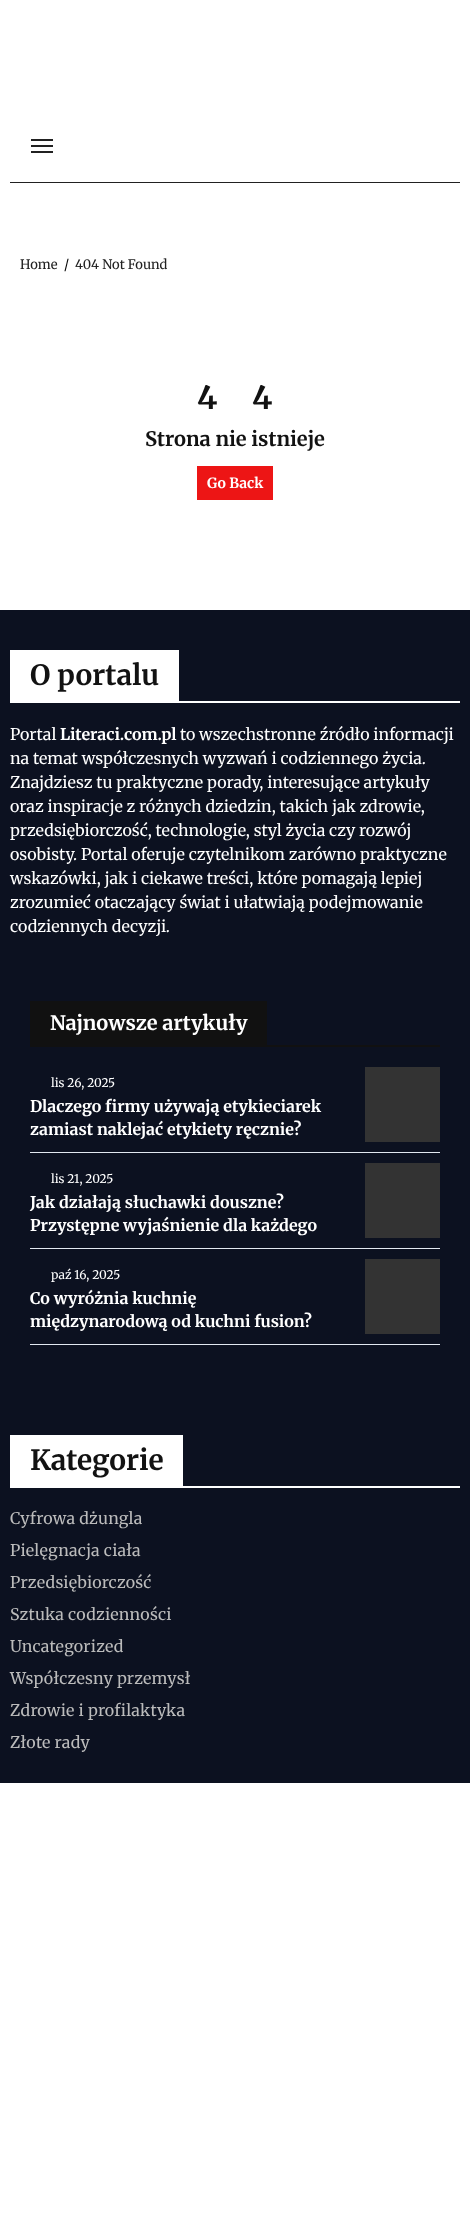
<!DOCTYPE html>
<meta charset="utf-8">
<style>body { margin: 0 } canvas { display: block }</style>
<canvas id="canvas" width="470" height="2220"></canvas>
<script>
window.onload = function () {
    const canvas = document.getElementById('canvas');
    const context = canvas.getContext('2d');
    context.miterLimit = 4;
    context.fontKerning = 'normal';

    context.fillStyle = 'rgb(255, 255, 255)';
    context.fillRect(0, 0, 470, 2220);
    context.fillStyle = 'rgb(33, 33, 33)';
    context.fillRect(10, 182, 450, 1);
    context.fillRect(31, 139, 22, 2);
    context.fillRect(31, 145, 22, 2);
    context.fillRect(31, 151, 22, 2);
    context.fillStyle = 'rgb(237, 21, 21)';
    context.fillRect(197, 466, 76, 34);
    context.fillStyle = 'rgb(12, 17, 32)';
    context.fillRect(0, 610, 470, 1173);
    context.fillStyle = 'rgb(255, 255, 255)';
    context.fillRect(10, 650, 169, 51);
    context.fillRect(10, 701, 450, 2);
    context.fillStyle = 'rgb(17, 17, 17)';
    context.fillRect(30, 1045, 410, 2);
    context.fillRect(30, 1001, 237, 44);
    context.fillStyle = 'rgb(226, 232, 240)';
    context.fillRect(30, 1152, 410, 1);
    context.fillStyle = 'rgb(51, 51, 51)';
    context.fillRect(365, 1067, 75, 75);
    context.fillStyle = 'rgb(226, 232, 240)';
    context.fillRect(30, 1248, 410, 1);
    context.fillStyle = 'rgb(51, 51, 51)';
    context.fillRect(365, 1163, 75, 75);
    context.fillStyle = 'rgb(226, 232, 240)';
    context.fillRect(30, 1344, 410, 1);
    context.fillStyle = 'rgb(51, 51, 51)';
    context.fillRect(365, 1259, 75, 75);
    context.fillStyle = 'rgb(255, 255, 255)';
    context.fillRect(10, 1435, 173, 51);
    context.fillRect(10, 1486, 450, 2);
    context.font = '13px Merriweather';
    context.fillStyle = 'rgb(33, 33, 33)';
    context.fillText('Home', 20, 269);
    context.fillStyle = 'rgb(0, 0, 0)';
    context.fillText('/', 64, 269);
    context.fillStyle = 'rgb(33, 33, 33)';
    context.fillText('404 Not Found', 75, 269);
    context.font = 'bold 32px Merriweather';
    context.fillStyle = 'rgb(18, 18, 18)';
    context.fillText('4', 197, 409);
    context.fillText('4', 252, 409);
    context.font = 'bold 20px Merriweather';
    context.fillText('Strona nie istnieje', 145, 446);
    context.font = 'bold 14px Merriweather';
    context.fillStyle = 'rgb(255, 255, 255)';
    context.fillText('Go Back', 207, 488);
    context.font = 'bold 28px Merriweather';
    context.fillStyle = 'rgb(18, 18, 18)';
    context.fillText('O portalu', 30, 685);
    context.font = '16px Merriweather';
    context.fillStyle = 'rgb(255, 255, 255)';
    context.fillText('Portal', 10, 740);
    context.font = 'bold 16px Merriweather';
    context.fillText('Literaci.com.pl', 60, 740);
    context.font = '16px Merriweather';
    context.fillText('to wszechstronne źródło informacji', 180, 740);
    context.fillText('na temat współczesnych wyzwań i codziennego życia.', 10, 764);
    context.fillText('Znajdziesz tu praktyczne porady, interesujące artykuły', 10, 788);
    context.fillText('oraz inspiracje z różnych dziedzin, takich jak zdrowie,', 10, 812);
    context.fillText('przedsiębiorczość, technologie, styl życia czy rozwój', 10, 836);
    context.fillText('osobisty. Portal oferuje czytelnikom zarówno praktyczne', 10, 860);
    context.fillText('wskazówki, jak i ciekawe treści, które pomagają lepiej', 10, 884);
    context.fillText('zrozumieć otaczający świat i ułatwiają podejmowanie', 10, 908);
    context.fillText('codziennych decyzji.', 10, 932);
    context.font = 'bold 20px Merriweather';
    context.fillText('Najnowsze artykuły', 50, 1030);
    context.font = '12px Merriweather';
    context.fillText('lis 26, 2025', 51, 1087);
    context.font = 'bold 16px Merriweather';
    context.fillText('Dlaczego firmy używają etykieciarek', 30, 1112);
    context.fillText('zamiast naklejać etykiety ręcznie?', 30, 1135);
    context.font = '12px Merriweather';
    context.fillText('lis 21, 2025', 51, 1183);
    context.font = 'bold 16px Merriweather';
    context.fillText('Jak działają słuchawki douszne?', 30, 1208);
    context.fillText('Przystępne wyjaśnienie dla każdego', 30, 1231);
    context.font = '12px Merriweather';
    context.fillText('paź 16, 2025', 51, 1279);
    context.font = 'bold 16px Merriweather';
    context.fillText('Co wyróżnia kuchnię', 30, 1304);
    context.fillText('międzynarodową od kuchni fusion?', 30, 1327);
    context.font = 'bold 28px Merriweather';
    context.fillStyle = 'rgb(18, 18, 18)';
    context.fillText('Kategorie', 30, 1470);
    context.letterSpacing = '0.2px';
    context.font = '16px Merriweather';
    context.fillStyle = 'rgb(187, 187, 187)';
    context.fillText('Cyfrowa dżungla', 10, 1524);
    context.fillText('Pielęgnacja ciała', 10, 1556);
    context.fillText('Przedsiębiorczość', 10, 1588);
    context.fillText('Sztuka codzienności', 10, 1620);
    context.fillText('Uncategorized', 10, 1652);
    context.fillText('Współczesny przemysł', 10, 1684);
    context.fillText('Zdrowie i profilaktyka', 10, 1716);
    context.fillText('Złote rady', 10, 1748);
};
</script>
